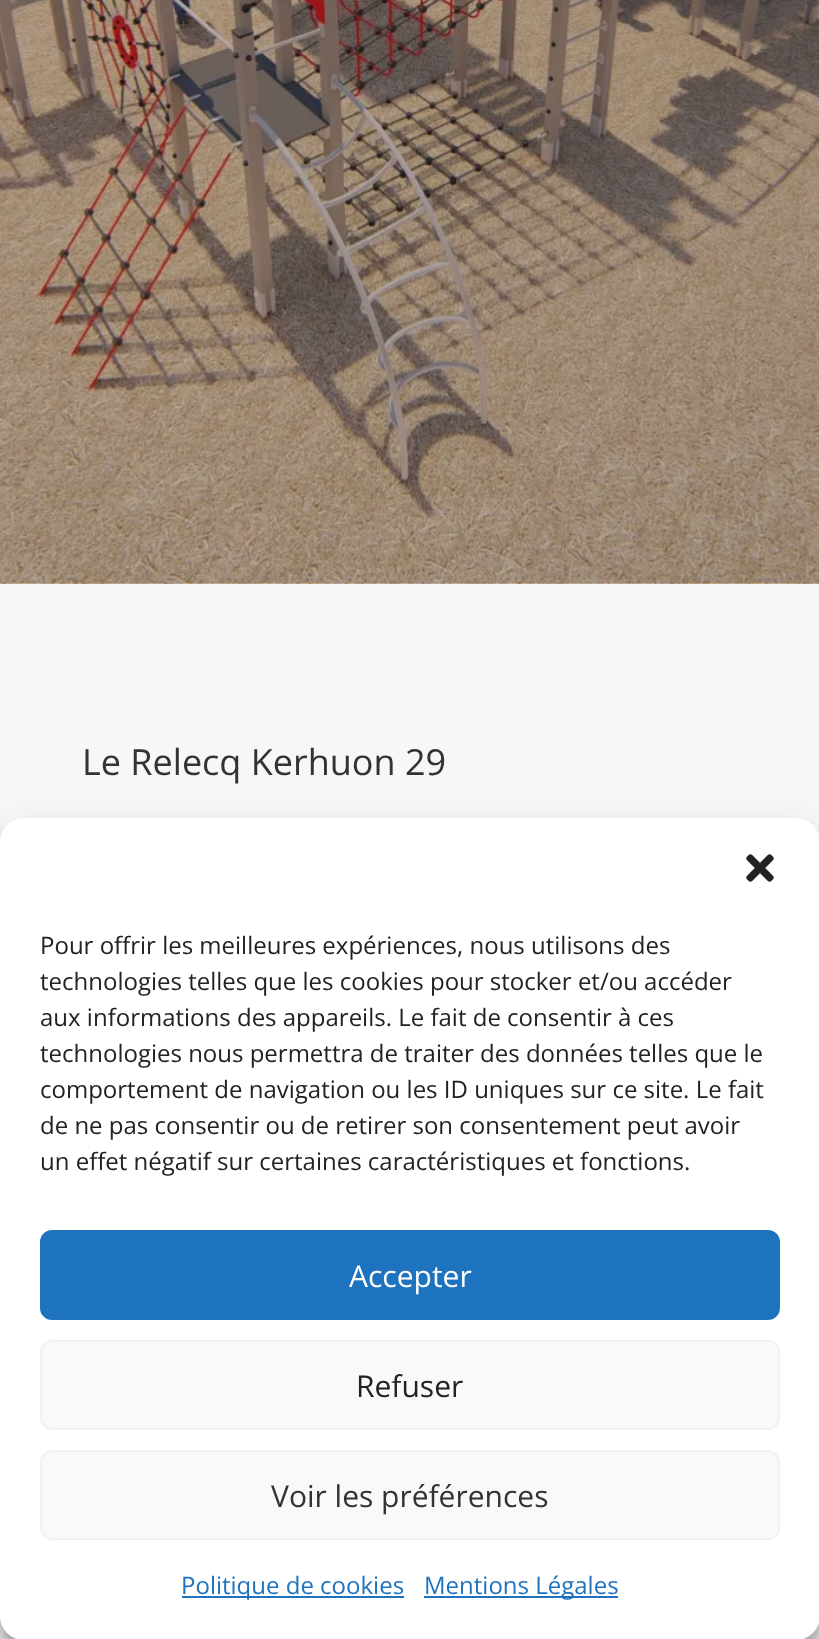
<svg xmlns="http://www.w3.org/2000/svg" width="819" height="1639">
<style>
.a{font:36px Open Sans;fill:#333}
.b{font:24px Open Sans;fill:#222}
.c{font:30px Open Sans;fill:#fff}
.d{font:30px Open Sans;fill:#222}
.e{font:30px Open Sans;fill:#333}
.f{font:24px Open Sans;fill:#1e73be}
</style>
<rect width="100%" height="100%" fill="#fff"/>
<image href="1.png" x="0" y="0" width="819" height="584"/>
<path fill="#f7f7f7" d="M0 584h819v1055H0z"/>
<rect fill="#0000003b" filter="blur(6px)" y="830" width="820" height="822" rx="24"/>
<rect fill="#00000030" filter="blur(20px)" y="838" width="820" height="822" rx="24"/>
<rect fill="#fff" y="818" width="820" height="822" rx="24"/>
<image href="2.png" x="746" y="854" width="28" height="28"/>
<rect fill="#1e73be" stroke="#1e73be" stroke-width="2" x="41" y="1231" width="738" height="88" rx="11"/>
<rect fill="#f9f9f9" stroke="#f2f2f2" stroke-width="2" x="41" y="1341" width="738" height="88" rx="11"/>
<rect fill="#f9f9f9" stroke="#f2f2f2" stroke-width="2" x="41" y="1451" width="738" height="88" rx="11"/>
<path fill="#1e73be" d="M182 1596h222v2H182z"/>
<path fill="#1e73be" d="M424 1596h194v2H424z"/>
<text class="a" x="82" y="775">Le Relecq Kerhuon 29</text>
<text class="b" x="40" y="954">Pour offrir les meilleures expériences, nous utilisons des</text>
<text class="b" x="40" y="990">technologies telles que les cookies pour stocker et/ou accéder</text>
<text class="b" x="40" y="1026">aux informations des appareils. Le fait de consentir à ces</text>
<text class="b" x="40" y="1062">technologies nous permettra de traiter des données telles que le</text>
<text class="b" x="40" y="1098">comportement de navigation ou les ID uniques sur ce site. Le fait</text>
<text class="b" x="40" y="1134">de ne pas consentir ou de retirer son consentement peut avoir</text>
<text class="b" x="40" y="1170">un effet négatif sur certaines caractéristiques et fonctions.</text>
<text class="c" x="349" y="1287">Accepter</text>
<text class="d" x="356" y="1397">Refuser</text>
<text class="e" x="271" y="1507">Voir les préférences</text>
<text class="f" x="181" y="1594">Politique de cookies</text>
<text class="f" x="424" y="1594">Mentions Légales</text>
</svg>
